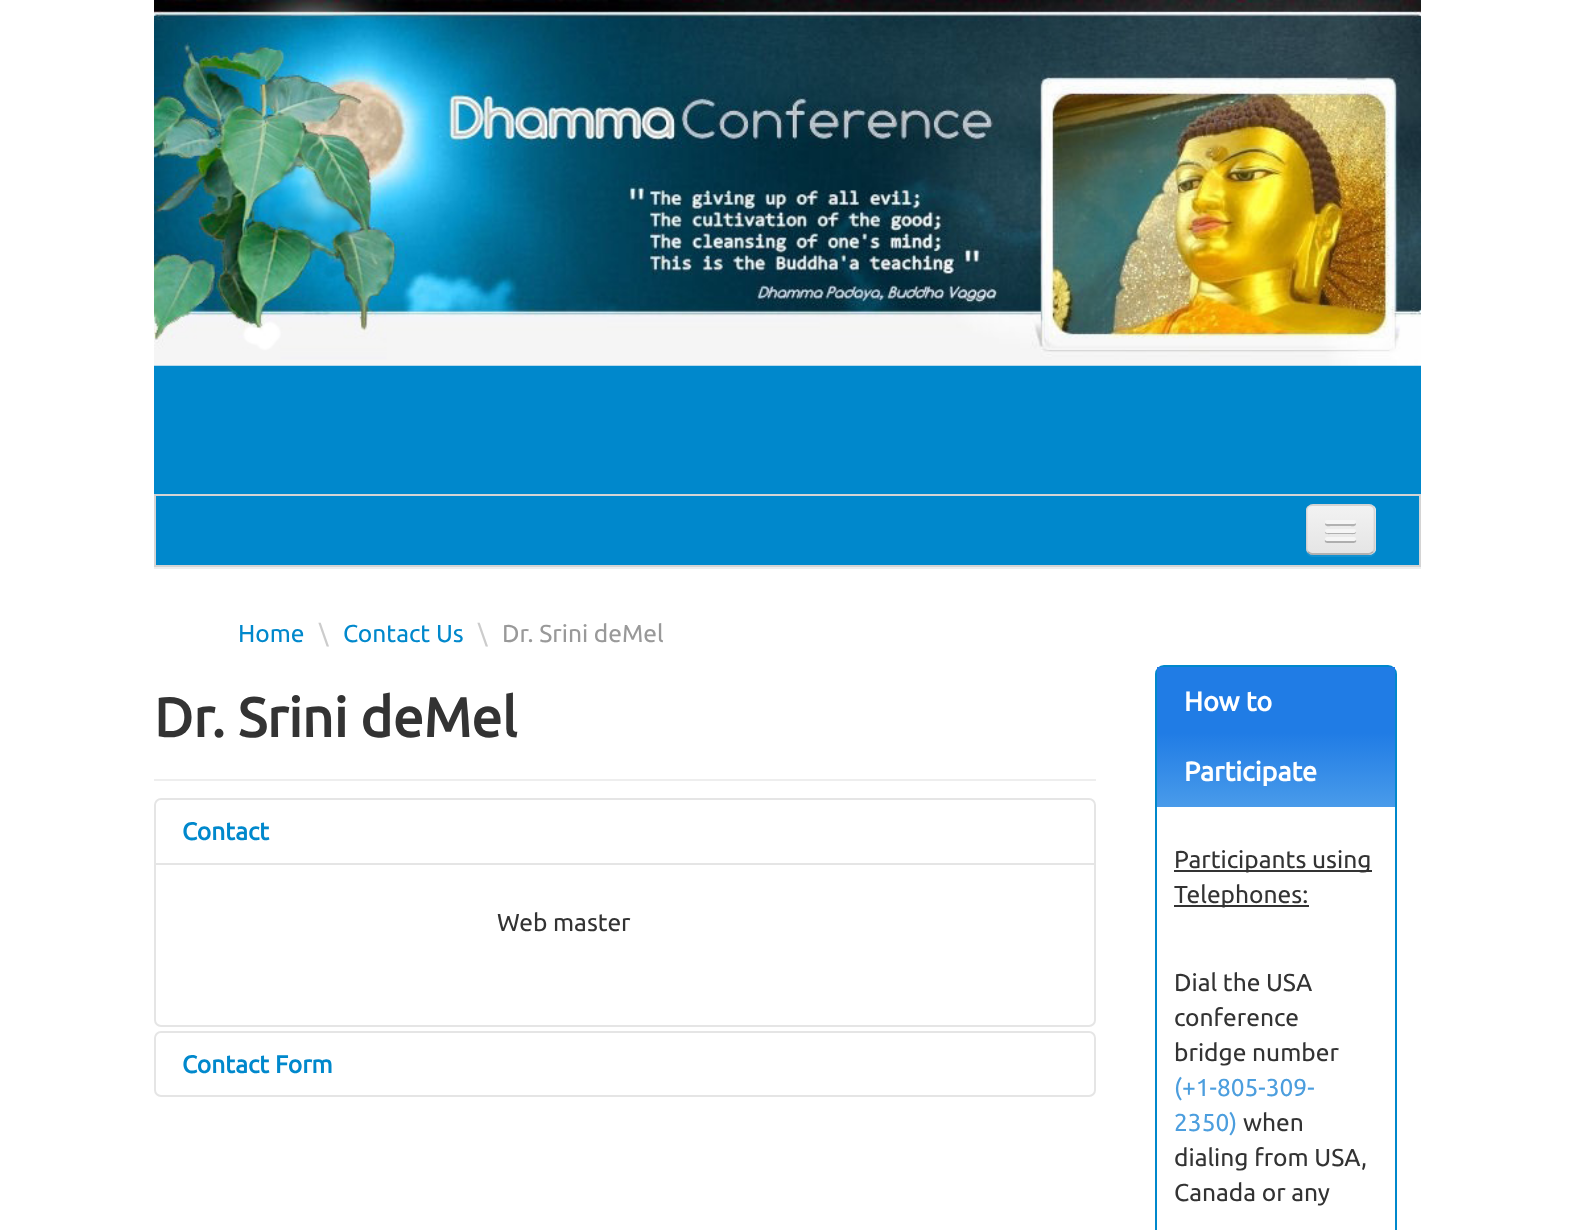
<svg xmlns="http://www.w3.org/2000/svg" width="1575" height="1230">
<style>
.a{font:24.5px Ubuntu;fill:#08c}
.b{font:24.5px Ubuntu;fill:#ccc}
.c{font:24.5px Ubuntu;fill:#999}
.d{font:bold 55px Ubuntu;fill:#333}
.e{font:bold 24.5px Ubuntu;fill:#08c}
.f{font:24.5px Ubuntu;fill:#333}
.g{font:bold 27px Ubuntu;fill:#fff}
.h{font:24.5px Ubuntu;fill:#4c9ede}
</style>
<defs>
<clipPath id="clip1"><rect x="1306" y="504" width="70" height="51" rx="7"/></clipPath>
<linearGradient id="g1" gradientUnits="userSpaceOnUse" x1="1341" y1="506" x2="1341" y2="553"><stop offset="0" stop-color="#f2f2f2"/><stop offset="1" stop-color="#e5e5e5"/></linearGradient>
<linearGradient id="g2" gradientUnits="userSpaceOnUse" x1="1276" y1="667" x2="1276" y2="807"><stop offset="0" stop-color="#207ce5"/><stop offset="0.47" stop-color="#207ce5"/><stop offset="1" stop-color="#499bea"/></linearGradient>
</defs>
<rect width="100%" height="100%" fill="#fff"/>
<path fill="#08c" d="M154 365h1267v129H154z"/>
<image href="1.png" x="154" y="0" width="1267" height="366"/>
<path fill="#eee" d="M154 567h1267v2H154z"/>
<path fill="#08c" stroke="#d4d4d4" stroke-width="2" d="M155 495h1265v71H155z"/>
<path fill="#1391d0" d="M1306 550c0 4 3 7 7 7h56c4 0 7-3 7-7v-37l-1-3l1 32c0 14-3 13-17 13h-37c-5 0-13 2-16-5z"/>
<rect fill="#ededed" x="1306" y="504" width="70" height="51" rx="7"/>
<g clip-path="url(#clip1)">
<path fill="url(#g1)" d="M1306 506h70v47H1306z"/>
</g>
<path fill="none" stroke="#00000040" stroke-width="1.8" d="M1373 552c-1.5 1-3 2-4.5 2h-56c-1.5 0-3-1-4.5-2"/>
<path fill="none" stroke="#0000001a" stroke-width="1.8" d="M1308 552c-1-1-1.5-2.5-1.5-4v-37c0-1.5 .5-3 1.5-4.5c1.5-1 3-1.5 4.5-1.5h56c1.5 0 3 .5 4.5 1.5c1 1.5 1.5 3 1.5 4.5v37c0 1.5-.5 3-1.5 4"/>
<path fill="#b2b2b2" d="M1325.5 523l-.5 1.5c.5 2.5 5.5 1.5 6.5 1.5h18c1 0 6 1 6.5-1.5l-.5-1.5c-1 .5-29 .5-30 0z"/>
<rect fill="#f5f5f5" x="1325" y="520" width="31" height="4" rx="2"/>
<path fill="#b0b0b0" d="M1325 531.5c-1 3.5 5.5 2.5 6.5 2.5h18c1 0 7.5 1 6.5-2.5l-1.5 .5h-28z"/>
<rect fill="#f5f5f5" x="1325" y="529" width="31" height="4" rx="2"/>
<path fill="#aeaeae" d="M1325 540c-1.5 4 5.5 3 6.5 3h18c1 0 8 1 6.5-3l-1.5 .5h-28z"/>
<rect fill="#f5f5f5" x="1325" y="537" width="31" height="4" rx="2"/>
<path fill="#eee" d="M154 779h942v2H154z"/>
<rect fill="none" stroke="#e5e5e5" stroke-width="2" x="155" y="799" width="940" height="227" rx="6"/>
<path fill="#e5e5e5" d="M156 863h938v2H156z"/>
<rect fill="none" stroke="#e5e5e5" stroke-width="2" x="155" y="1032" width="940" height="64" rx="6"/>
<rect fill="none" stroke="#08c" stroke-width="2" x="1156" y="666" width="240" height="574" rx="8"/>
<path fill="url(#g2)" d="M1157 667h238v140H1157z"/>
<path fill="#333" d="M1174 870h198v2H1174z"/>
<path fill="#333" d="M1174 905h135v2H1174z"/>
<text class="a" x="238" y="642">Home</text>
<text class="b" x="319" y="642">\</text>
<text class="a" x="343" y="642">Contact Us</text>
<text class="b" x="478" y="642">\</text>
<text class="c" x="502" y="642">Dr. Srini deMel</text>
<text class="d" x="154" y="737">Dr. Srini deMel</text>
<text class="e" x="182" y="840">Contact</text>
<text class="f" x="497" y="931">Web master</text>
<text class="e" x="182" y="1073">Contact Form</text>
<text class="g" x="1184" y="711">How to</text>
<text class="g" x="1184" y="781">Participate</text>
<text class="f" x="1174" y="868">Participants using</text>
<text class="f" x="1174" y="903">Telephones:</text>
<text class="f" x="1174" y="991">Dial the USA</text>
<text class="f" x="1174" y="1026">conference</text>
<text class="f" x="1174" y="1061">bridge number</text>
<text class="h" x="1174" y="1096">(+1-805-309-</text>
<text class="h" x="1174" y="1131">2350)</text>
<text class="f" x="1243" y="1131">when</text>
<text class="f" x="1174" y="1166">dialing from USA,</text>
<text class="f" x="1174" y="1201">Canada or any</text>
</svg>
